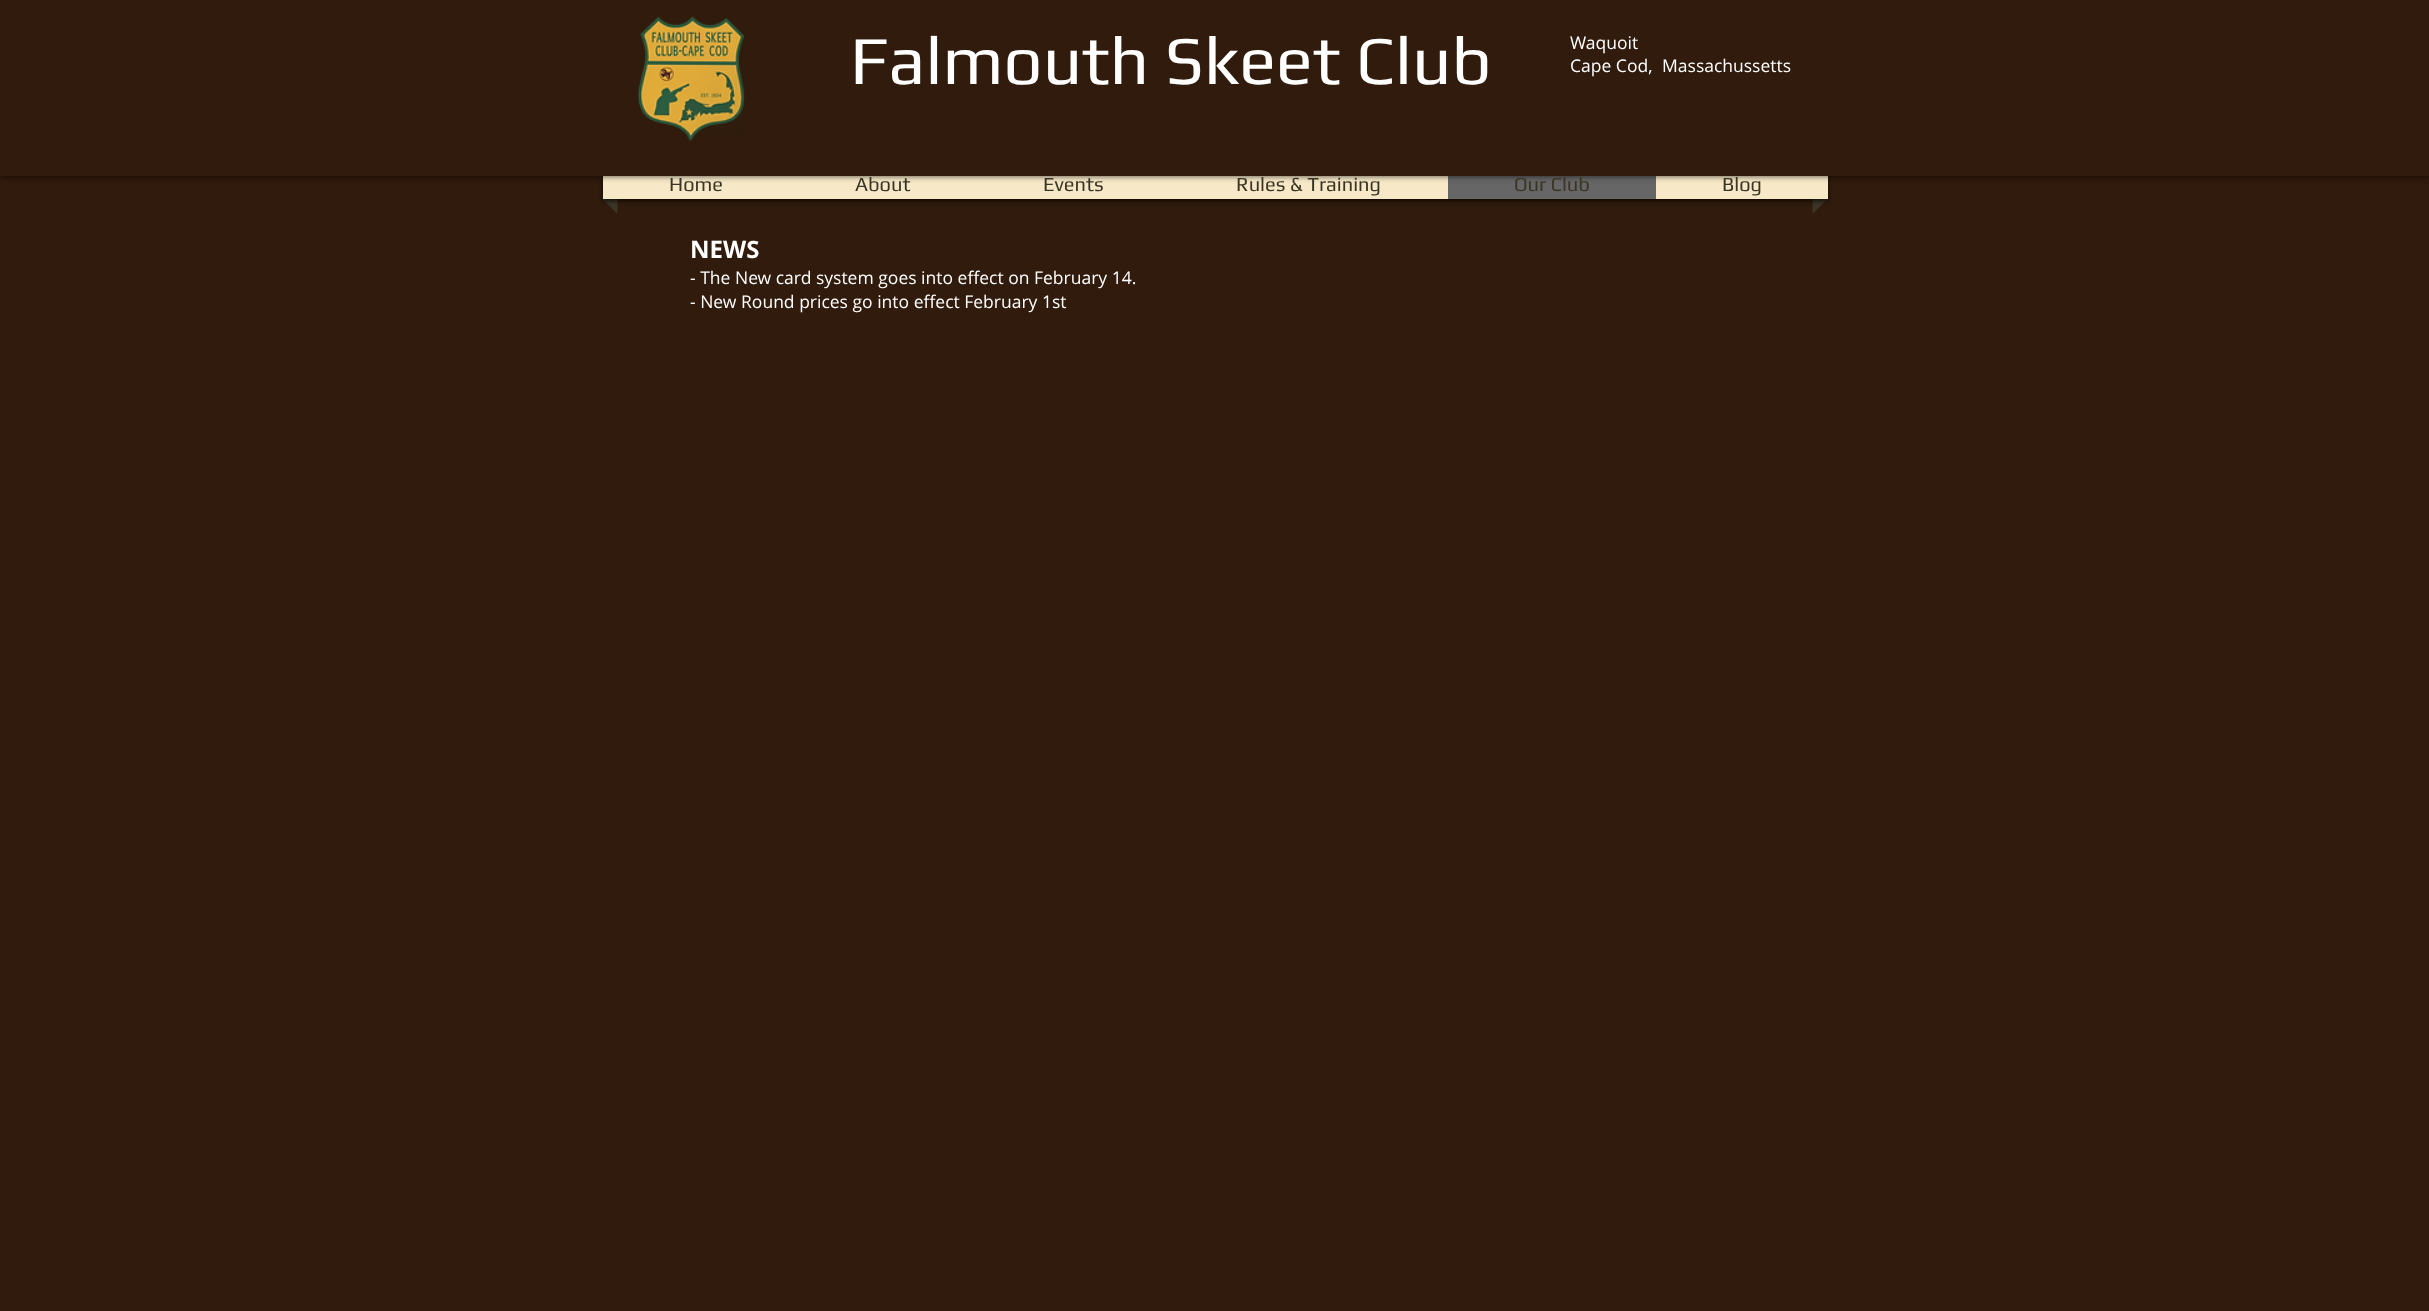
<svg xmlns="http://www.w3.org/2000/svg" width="2429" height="1311">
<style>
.a{font:68.75px Play;fill:#fff}
.b{font:17.5px Open Sans;fill:#fff}
.c{font:20px Play;fill:#3b3525}
.d{font:bold 24px Open Sans;fill:#fff}
</style>
<rect width="100%" height="100%" fill="#301b0c"/>
<path fill="#3b3525" d="M602.5 199h15v15z"/>
<path fill="#3b3525" d="M1812.5 199h15l-15 15z"/>
<path fill="#000000b3" filter="blur(2px)" d="M603 174h1225v27H603z"/>
<path fill="#f7e9c8" d="M603 176h1225v23H603z"/>
<path fill="#666" d="M1448 176h208v23H1448z"/>
<path fill="#000000b3" filter="blur(3px)" d="M0 0h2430v176H0z"/>
<path fill="#301b0c" d="M0 0h2429v176H0z"/>
<image href="1.png" x="637" y="16" width="108" height="126"/>
<text class="a" x="850" y="84">Falmouth Skeet Club</text>
<text class="b" x="1570" y="49">Waquoit</text>
<text class="b" x="1570" y="72">Cape Cod,</text>
<text class="b" x="1662" y="72">Massachussetts</text>
<text class="c" x="669" y="191">Home</text>
<text class="c" x="855" y="191">About</text>
<text class="c" x="1043" y="191">Events</text>
<text class="c" x="1236" y="191">Rules &amp; Training</text>
<text class="c" x="1514" y="191">Our Club</text>
<text class="c" x="1722" y="191">Blog</text>
<text class="d" x="690" y="258">NEWS</text>
<text class="b" x="690" y="284">- The New card system goes into effect on February 14.</text>
<text class="b" x="690" y="308">- New Round prices go into effect February 1st</text>
</svg>
